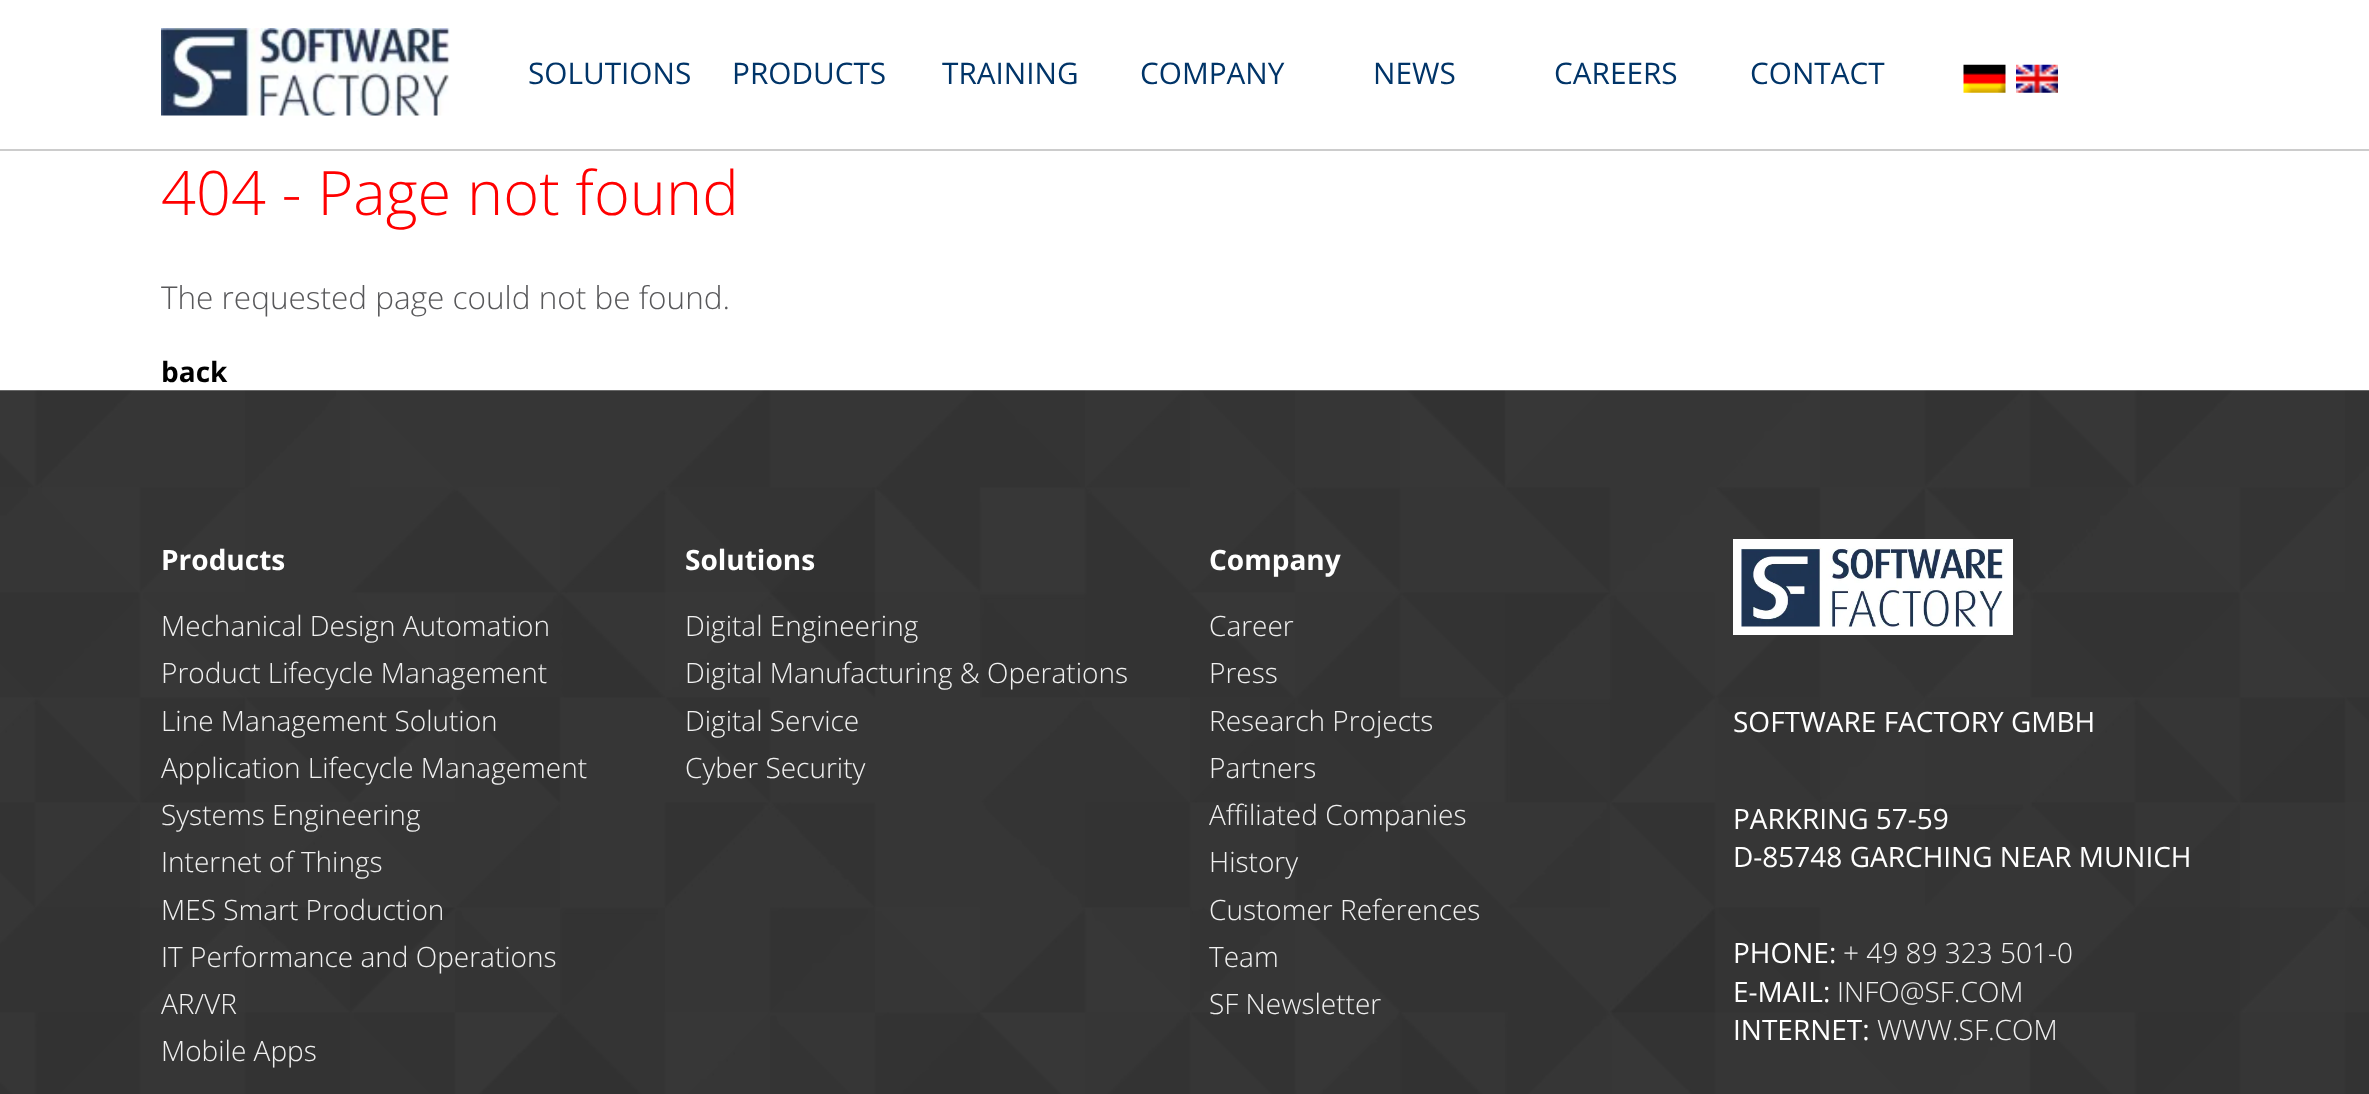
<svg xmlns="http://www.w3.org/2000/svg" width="2369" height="1094">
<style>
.a{font:29.75px Open Sans;fill:#003468}
.b{font:300 61.25px Open Sans;fill:#f00}
.c{font:300 31.5px Open Sans;fill:#58585a}
.d{font:bold 28px Open Sans;fill:#000}
.e{font:bold 28px Open Sans;fill:#fff}
.f{font:300 28px Open Sans;fill:#f0f0f0}
.g{font:28px Open Sans;fill:#fff}
</style>
<rect width="100%" height="100%" fill="#fff"/>
<path fill="#ccc" d="M0 149h2369v2H0z"/>
<image href="1.png" x="161" y="28" width="289" height="88"/>
<image href="2.png" x="1963" y="64" width="43" height="29"/>
<image href="3.png" x="2016" y="64" width="42" height="29"/>
<image href="4.png" x="0" y="390" width="2369" height="704"/>
<path fill="#fff" d="M1733 539h280v96H1733z"/>
<image href="5.png" x="1741" y="547" width="263" height="80"/>
<text class="a" x="528" y="84">SOLUTIONS</text>
<text class="a" x="732" y="84">PRODUCTS</text>
<text class="a" x="942" y="84">TRAINING</text>
<text class="a" x="1140" y="84">COMPANY</text>
<text class="a" x="1373" y="84">NEWS</text>
<text class="a" x="1554" y="84">CAREERS</text>
<text class="a" x="1750" y="84">CONTACT</text>
<text class="b" x="161" y="215">404 - Page not found</text>
<text class="c" x="161" y="309">The requested page could not be found.</text>
<text class="d" x="161" y="382">back</text>
<text class="e" x="161" y="570">Products</text>
<text class="f" x="161" y="636">Mechanical Design Automation</text>
<text class="f" x="161" y="683">Product Lifecycle Management</text>
<text class="f" x="161" y="731">Line Management Solution</text>
<text class="f" x="161" y="778">Application Lifecycle Management</text>
<text class="f" x="161" y="825">Systems Engineering</text>
<text class="f" x="161" y="872">Internet of Things</text>
<text class="f" x="161" y="920">MES Smart Production</text>
<text class="f" x="161" y="967">IT Performance and Operations</text>
<text class="f" x="161" y="1014">AR/VR</text>
<text class="f" x="161" y="1061">Mobile Apps</text>
<text class="e" x="685" y="570">Solutions</text>
<text class="f" x="685" y="636">Digital Engineering</text>
<text class="f" x="685" y="683">Digital Manufacturing &amp; Operations</text>
<text class="f" x="685" y="731">Digital Service</text>
<text class="f" x="685" y="778">Cyber Security</text>
<text class="e" x="1209" y="570">Company</text>
<text class="f" x="1209" y="636">Career</text>
<text class="f" x="1209" y="683">Press</text>
<text class="f" x="1209" y="731">Research Projects</text>
<text class="f" x="1209" y="778">Partners</text>
<text class="f" x="1209" y="825">Affiliated Companies</text>
<text class="f" x="1209" y="872">History</text>
<text class="f" x="1209" y="920">Customer References</text>
<text class="f" x="1209" y="967">Team</text>
<text class="f" x="1209" y="1014">SF Newsletter</text>
<text class="g" x="1733" y="732">SOFTWARE FACTORY GMBH</text>
<text class="g" x="1733" y="829">PARKRING 57-59</text>
<text class="g" x="1733" y="867">D-85748 GARCHING NEAR MUNICH</text>
<text class="g" x="1733" y="963">PHONE:</text>
<text class="f" x="1843" y="963">+ 49 89 323 501-0</text>
<text class="g" x="1733" y="1002">E-MAIL:</text>
<text class="f" x="1837" y="1002">INFO@SF.COM</text>
<text class="g" x="1733" y="1040">INTERNET:</text>
<text class="f" x="1877" y="1040">WWW.SF.COM</text>
</svg>
